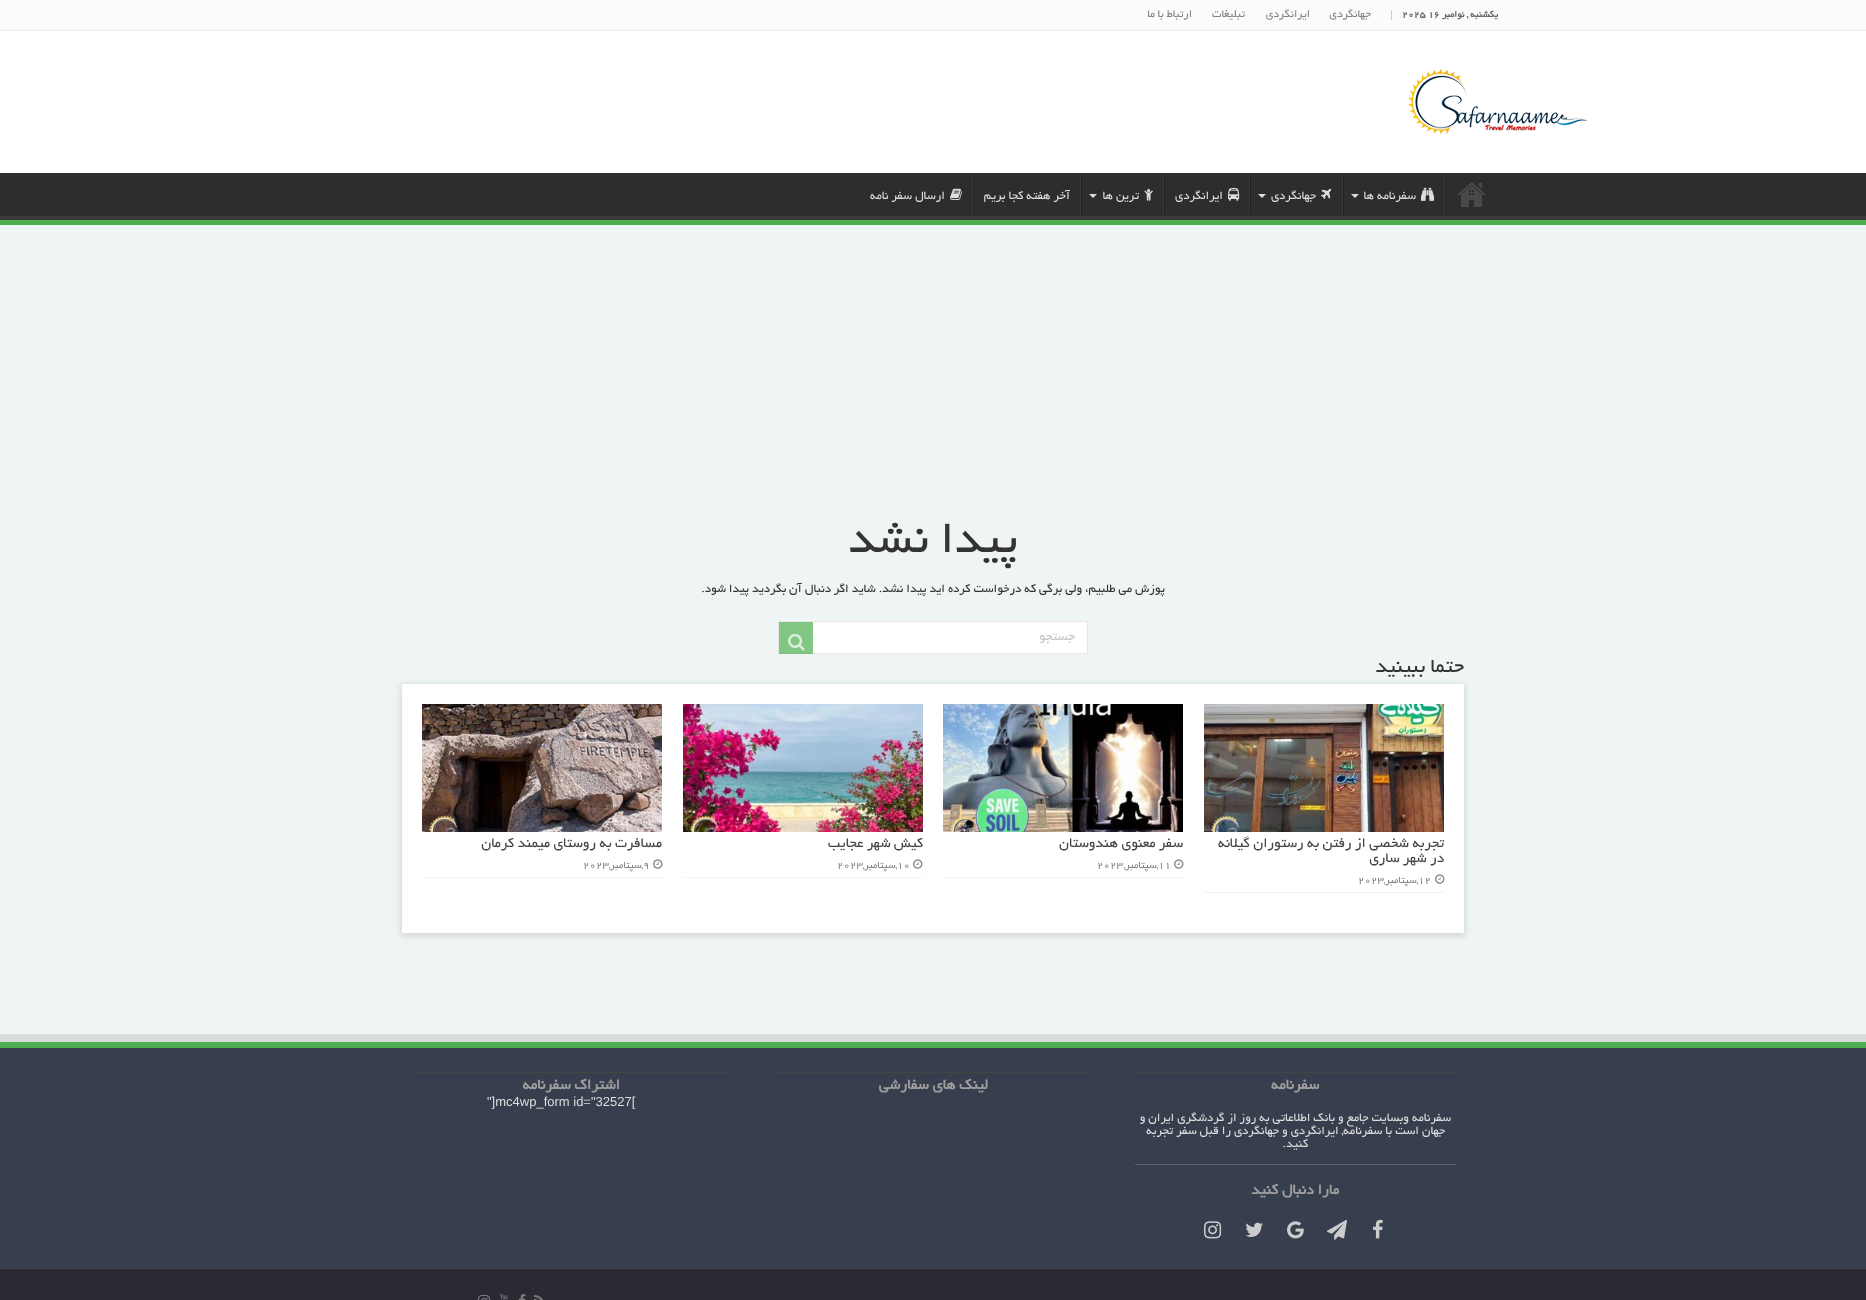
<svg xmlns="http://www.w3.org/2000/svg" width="1866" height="1300">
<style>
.a{font:bold 10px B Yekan;direction:rtl;fill:#666}
.b{font:bold 10px B Yekan;fill:#666}
.c{font:12px B Yekan;direction:rtl;fill:#838383}
.d{font:13px B Yekan;direction:rtl;fill:#ddd}
.e{font:50px B Yekan;direction:rtl;fill:#333}
.f{font:13px B Yekan;direction:rtl;fill:#333}
.g{font:14px B Yekan;direction:rtl;fill:#c5c5c5}
.h{font:22px B Yekan;direction:rtl;fill:#333}
.i{font:15.25px B Yekan;direction:rtl;fill:#444}
.j{font:11px B Yekan;fill:#838383}
.k{font:11px B Yekan;direction:rtl;fill:#838383}
.l{font:bold 16px B Yekan;direction:rtl;fill:#9e9e9e}
.m{font:13px Liberation Sans;fill:#ddd}
</style>
<defs>
<clipPath id="clip1"><path d="M0 173h1866v47H0z"/></clipPath>
</defs>
<rect width="100%" height="100%" fill="#eff4f4"/>
<path fill="#fff" d="M0 31h1866v142H0z"/>
<path fill="#fbfbfb" d="M0 0h1866v30H0z"/>
<path fill="#ececec" d="M0 30h1866v1H0z"/>
<path fill="#ccc" d="M1391 10h1v10H1391z"/>
<image href="1.png" x="1408" y="69" width="180" height="66"/>
<path fill="#2d2d2d" d="M0 173h1866v43H0z"/>
<g clip-path="url(#clip1)">
<path fill="#393939" fill-rule="evenodd" d="M-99 74h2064v245h-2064zm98 93h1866c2 1 1 15 1 17v31l-1 1h-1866h-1v-40c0-1-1-9 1-9z"/>
</g>
<path fill="#4caf4f" d="M0 220h1866v5H0z"/>
<image href="2.png" x="1457" y="182" width="29" height="25"/>
<path fill="#222" d="M1445 173h1v42H1445z"/>
<path fill="#383838" d="M1444 173h1v42H1444z"/>
<image href="3.png" x="1421" y="187" width="13" height="14"/>
<path fill="#ddd" d="M1351 194h8l-4 4z"/>
<path fill="#222" d="M1343 173h1v42H1343z"/>
<path fill="#383838" d="M1342 173h1v42H1342z"/>
<image href="4.png" x="1321" y="188" width="11" height="11"/>
<path fill="#ddd" d="M1258 194h8l-4 4z"/>
<path fill="#222" d="M1250 173h1v42H1250z"/>
<path fill="#383838" d="M1249 173h1v42H1249z"/>
<image href="5.png" x="1228" y="187" width="12" height="14"/>
<path fill="#222" d="M1164 173h1v42H1164z"/>
<path fill="#383838" d="M1163 173h1v42H1163z"/>
<image href="6.png" x="1144" y="189" width="9" height="12"/>
<path fill="#ddd" d="M1089 194h8l-4 4z"/>
<path fill="#222" d="M1081 173h1v42H1081z"/>
<path fill="#383838" d="M1080 173h1v42H1080z"/>
<path fill="#222" d="M973 173h1v42H973z"/>
<path fill="#383838" d="M972 173h1v42H972z"/>
<image href="7.png" x="950" y="188" width="12" height="12"/>
<path fill="#fff" stroke="#e8e8e8" d="M778.5 621.5h309v32H778.5z"/>
<path fill="#4caf4fb3" d="M779 622h34v32H779z"/>
<image href="8.png" x="788" y="633" width="17" height="18"/>
<path fill="#86868647" filter="blur(3px)" d="M401 685h1064v251H401z"/>
<path fill="#fff" d="M402 684h1062v249H402z"/>
<image href="9.png" x="1204" y="704" width="240" height="128"/>
<path fill="#f2f2f2" d="M1204 892h240v1H1204z"/>
<image href="10.png" x="1435" y="874" width="10" height="10"/>
<image href="11.png" x="943" y="704" width="240" height="128"/>
<path fill="#f2f2f2" d="M943 877h240v1H943z"/>
<image href="10.png" x="1174" y="859" width="10" height="10"/>
<image href="12.png" x="683" y="704" width="240" height="128"/>
<path fill="#f2f2f2" d="M683 877h240v1H683z"/>
<image href="10.png" x="913" y="859" width="10" height="10"/>
<image href="13.png" x="422" y="704" width="240" height="128"/>
<path fill="#f2f2f2" d="M422 877h240v1H422z"/>
<image href="10.png" x="653" y="859" width="10" height="10"/>
<path fill="#d7dcdc" d="M0 1034h1866v8H0z"/>
<path fill="#373e4e" d="M0 1048h1866v220H0z"/>
<path fill="#4caf50" d="M0 1042h1866v6H0z"/>
<path fill="#444" d="M1135 1072h321v1H1135z"/>
<path fill="#5e5e5e" d="M1135 1164h321v1H1135z"/>
<image href="14.png" x="1373" y="1219" width="10" height="20"/>
<image href="15.png" x="1327" y="1219" width="20" height="21"/>
<image href="16.png" x="1287" y="1221" width="17" height="18"/>
<image href="17.png" x="1245" y="1222" width="18" height="15"/>
<image href="18.png" x="1204" y="1221" width="18" height="18"/>
<path fill="#444" d="M773 1072h320v1H773z"/>
<path fill="#444" d="M411 1072h320v1H411z"/>
<path fill="#2a2b32" d="M0 1269h1866v31H0z"/>
<path fill="#444" d="M0 1268h1866v1H0z"/>
<image href="19.png" x="534" y="1295" width="9" height="5"/>
<image href="20.png" x="518" y="1294" width="8" height="6"/>
<image href="21.png" x="500" y="1294" width="8" height="6"/>
<image href="22.png" x="478" y="1295" width="12" height="5"/>
<text class="a" x="1498" y="17">یکشنبه , نوامبر</text>
<text class="b" x="1402" y="17">2025 16</text>
<text class="c" x="1371" y="17">جهانگردی</text>
<text class="c" x="1310" y="17">ایرانگردی</text>
<text class="c" x="1245" y="17">تبلیغات</text>
<text class="c" x="1192" y="17">ارتباط با ما</text>
<text class="d" x="1416" y="199">سفرنامه ها</text>
<text class="d" x="1316" y="199">جهانگردی</text>
<text class="d" x="1223" y="199">ایرانگردی</text>
<text class="d" x="1139" y="199">ترین ها</text>
<text class="d" x="1070" y="199">آخر هفته کجا بریم</text>
<text class="d" x="945" y="199">ارسال سفر نامه</text>
<text class="e" x="1018" y="552">پیدا نشد</text>
<text class="f" x="1165" y="592">پوزش می طلبیم، ولی برگی که درخواست کرده اید پیدا نشد. شاید اگر دنبال آن بگردید پیدا شود.</text>
<text class="g" x="1075" y="640">جستجو</text>
<text class="h" x="1464" y="672">حتما ببینید</text>
<text class="i" x="1444" y="847">تجربه شخصی از رفتن به رستوران گیلانه</text>
<text class="i" x="1444" y="862">در شهر ساری</text>
<text class="j" x="1418" y="883">12</text>
<text class="k" x="1418" y="883">,سپتامبر,</text>
<text class="j" x="1358" y="883">2023</text>
<text class="i" x="1183" y="847">سفر معنوی هندوستان</text>
<text class="j" x="1158" y="868">11</text>
<text class="j" x="1097" y="868">2023</text>
<text class="k" x="1158" y="868">,سپتامبر,</text>
<text class="i" x="923" y="847">کیش شهر عجایب</text>
<text class="j" x="897" y="868">10</text>
<text class="j" x="837" y="868">2023</text>
<text class="k" x="897" y="868">,سپتامبر,</text>
<text class="i" x="662" y="847">مسافرت به روستای میمند کرمان</text>
<text class="j" x="643" y="868">9</text>
<text class="j" x="583" y="868">2023</text>
<text class="k" x="643" y="868">,سپتامبر,</text>
<text class="l" x="1319" y="1089">سفرنامه</text>
<text class="d" x="1451" y="1121">سفرنامه وبسایت جامع و بانک اطلاعاتی به روز از گردشگری ایران و</text>
<text class="d" x="1445" y="1134">جهان است</text>
<text class="d" x="1392" y="1134">با سفرنامه, ایرانگردی و جهانگردی را قبل سفر تجربه</text>
<text class="d" x="1308" y="1147">کنید.</text>
<text class="l" x="1339" y="1194">مارا دنبال کنید</text>
<text class="l" x="988" y="1089">لینک های سفارشی</text>
<text class="l" x="620" y="1089">اشتراک سفرنامه</text>
<text class="m" x="487" y="1106">"]mc4wp_form id="32527[</text>
</svg>
